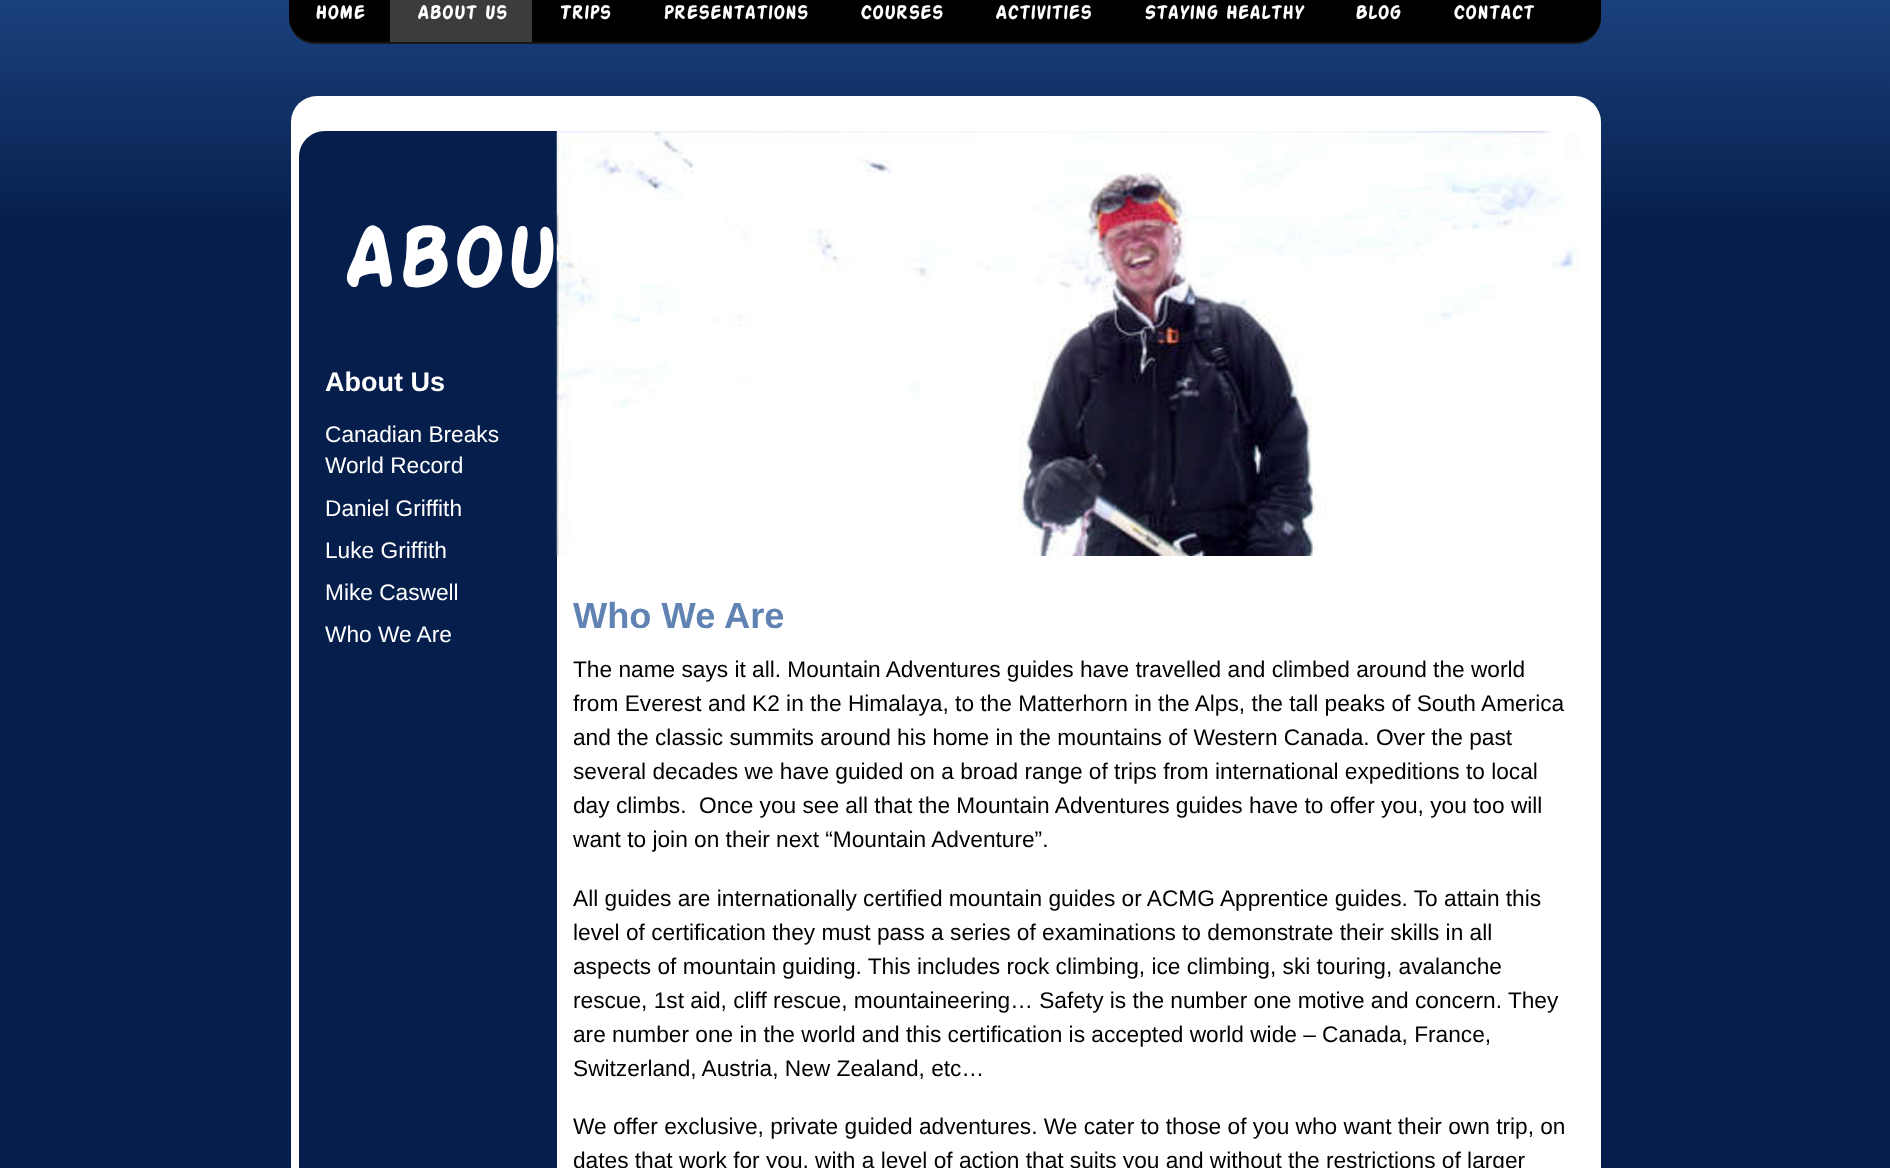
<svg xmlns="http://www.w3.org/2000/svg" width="1890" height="1168">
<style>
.a{font:bold 20.5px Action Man;fill:#fff}
.b{font:bold 91px Action Man;fill:#fff}
.c{font:bold 27px Liberation Sans;fill:#fff}
.d{font:22.7px Liberation Sans;fill:#fff}
.e{font:bold 36.25px Liberation Sans;fill:#6083b3}
.f{font:22.7px Liberation Sans;fill:#000}
</style>
<defs>
<linearGradient id="g1" gradientUnits="userSpaceOnUse" x1="945" y1="-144" x2="945" y2="1026"><stop offset="0" stop-color="#275799"/><stop offset="0.32" stop-color="#061e4c"/></linearGradient>
</defs>
<rect width="100%" height="100%" fill="#061e4c"/>
<path fill="url(#g1)" d="M0 0h1890v218H0z"/>
<path fill="#1a1819" d="M289-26h1312v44c0 14.5-11.5 26-26 26h-1260c-14.5 0-26-11.5-26-26z"/>
<path fill="#000" d="M289-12h1312v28c0 14.5-11.5 26-26 26h-1260c-14.5 0-26-11.5-26-26z"/>
<path fill="#3d3b3b" d="M390 0h142v42H390z"/>
<rect fill="#fff" x="291" y="96" width="1310" height="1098" rx="26"/>
<path fill="#061e4c" d="M325 131h1266v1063h-1266c-14.5 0-26-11.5-26-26v-1011c0-14.5 11.5-26 26-26z"/>
<path fill="#fff" d="M557 131h1034v1037H557z"/>
<image href="1.png" x="556" y="131" width="1023" height="425"/>
<text class="a" x="315" y="19">Home</text>
<text class="a" x="417" y="19">About Us</text>
<text class="a" x="559" y="19">Trips</text>
<text class="a" x="663" y="19">Presentations</text>
<text class="a" x="860" y="19">Courses</text>
<text class="a" x="995" y="19">Activities</text>
<text class="a" x="1144" y="19">Staying Healthy</text>
<text class="a" x="1355" y="19">Blog</text>
<text class="a" x="1453" y="19">Contact</text>
<text class="b" x="342" y="287">Abou</text>
<text class="c" x="325" y="391">About Us</text>
<text class="d" x="325" y="442">Canadian Breaks</text>
<text class="d" x="325" y="473">World Record</text>
<text class="d" x="325" y="516">Daniel Griffith</text>
<text class="d" x="325" y="558">Luke Griffith</text>
<text class="d" x="325" y="600">Mike Caswell</text>
<text class="d" x="325" y="642">Who We Are</text>
<text class="e" x="573" y="628">Who We Are</text>
<text class="f" x="573" y="677">The name says it all. Mountain Adventures guides have travelled and climbed around the world</text>
<text class="f" x="573" y="711">from Everest and K2 in the Himalaya, to the Matterhorn in the Alps, the tall peaks of South America</text>
<text class="f" x="573" y="745">and the classic summits around his home in the mountains of Western Canada. Over the past</text>
<text class="f" x="573" y="779">several decades we have guided on a broad range of trips from international expeditions to local</text>
<text class="f" xml:space="preserve" x="573" y="813">day climbs.  Once you see all that the Mountain Adventures guides have to offer you, you too will</text>
<text class="f" x="573" y="847">want to join on their next “Mountain Adventure”.</text>
<text class="f" x="573" y="906">All guides are internationally certified mountain guides or ACMG Apprentice guides. To attain this</text>
<text class="f" x="573" y="940">level of certification they must pass a series of examinations to demonstrate their skills in all</text>
<text class="f" x="573" y="974">aspects of mountain guiding. This includes rock climbing, ice climbing, ski touring, avalanche</text>
<text class="f" x="573" y="1008">rescue, 1st aid, cliff rescue, mountaineering… Safety is the number one motive and concern. They</text>
<text class="f" x="573" y="1042">are number one in the world and this certification is accepted world wide – Canada, France,</text>
<text class="f" x="573" y="1076">Switzerland, Austria, New Zealand, etc…</text>
<text class="f" x="573" y="1134">We offer exclusive, private guided adventures. We cater to those of you who want their own trip, on</text>
<text class="f" x="573" y="1168">dates that work for you, with a level of action that suits you and without the restrictions of larger</text>
</svg>
